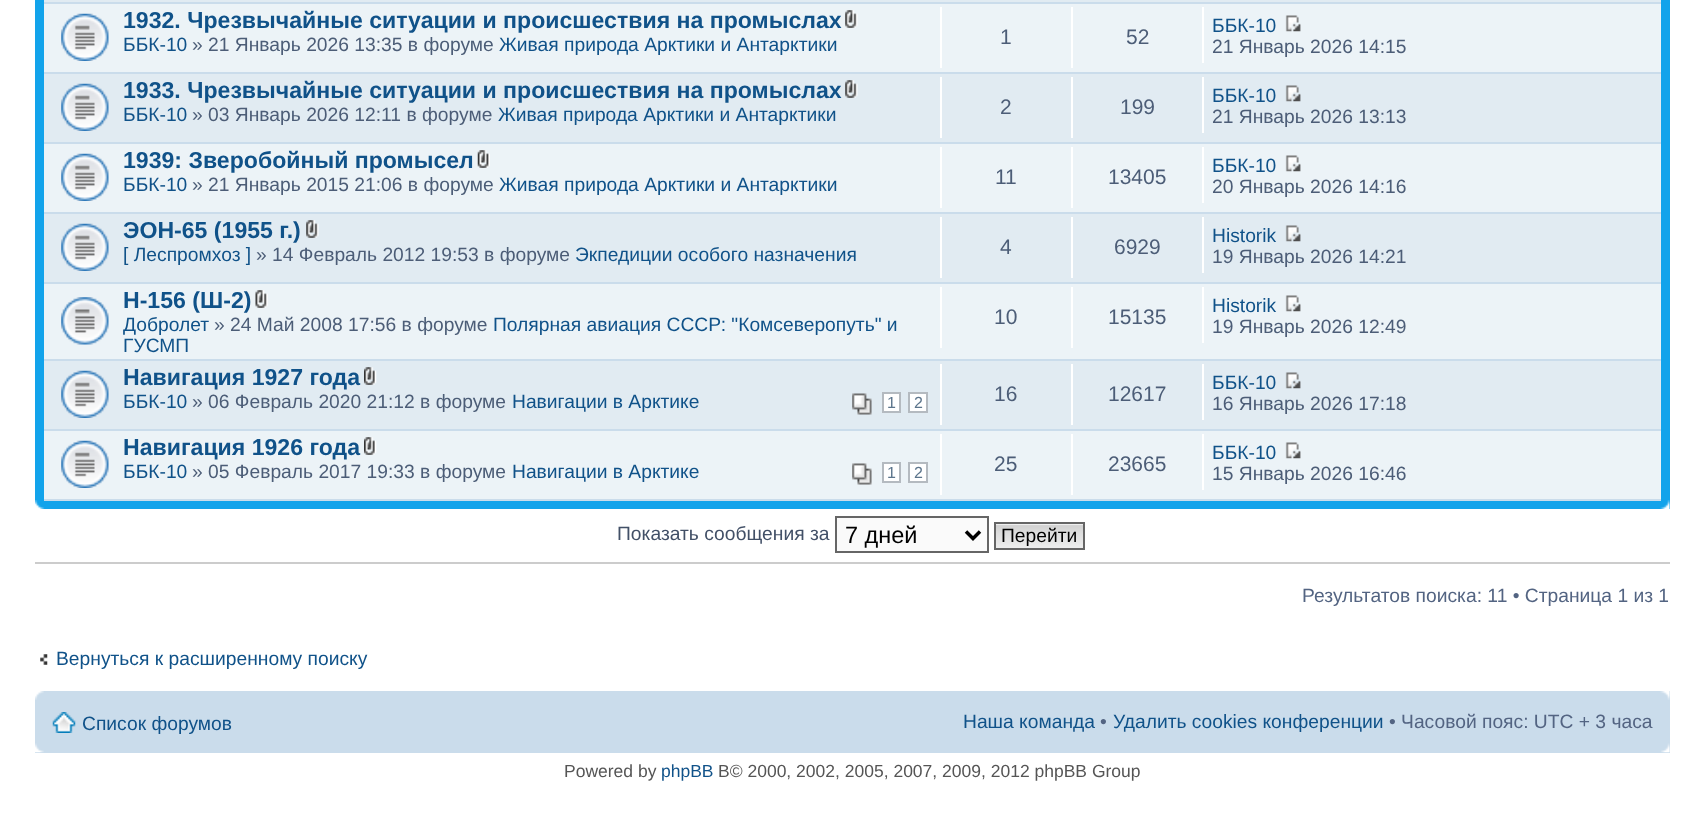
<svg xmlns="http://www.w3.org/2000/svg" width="1704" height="828">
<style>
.a{font:bold 23.1px Liberation Sans;fill:#105289}
.b{font:19.25px Liberation Sans;fill:#105289}
.c{font:19.25px Liberation Sans;fill:#4c5d77}
.d{font:21px Liberation Sans;fill:#4c5d77}
.e{font:16px Liberation Sans;fill:#5c758c}
.f{font:19.25px Liberation Sans;fill:#425067}
.g{font:23.5px Liberation Sans;fill:#000}
.h{font:19.25px Liberation Sans;fill:#000}
.i{font:19.25px Liberation Sans;fill:#536482}
.j{font:17.5px Liberation Sans;fill:#555}
.k{font:17.5px Liberation Sans;fill:#105289}
</style>
<rect width="100%" height="100%" fill="#fff"/>
<path fill="#12a3eb" d="M35 0h1635v509H35z"/>
<path fill="#e1ebf2" d="M44 0h1617v2H44z"/>
<path fill="#cadceb" d="M44 2h1617v2H44z"/>
<path fill="#ecf3f7" d="M44 4h1617v68H44z"/>
<path fill="#cadceb" d="M44 72h1617v2H44z"/>
<image href="1.png" x="61" y="13" width="48" height="48"/>
<image href="2.png" x="845" y="10" width="13" height="18"/>
<path fill="#fff" d="M940 7h2v61H940z"/>
<path fill="#fff" d="M1071 7h2v61H1071z"/>
<path fill="#fff" d="M1202 7h2v56H1202z"/>
<image href="3.png" x="1285" y="15" width="16" height="17"/>
<path fill="#e1ebf2" d="M44 74h1617v68H44z"/>
<path fill="#cadceb" d="M44 142h1617v2H44z"/>
<image href="4.png" x="61" y="83" width="48" height="48"/>
<image href="5.png" x="845" y="80" width="13" height="18"/>
<path fill="#fff" d="M940 77h2v61H940z"/>
<path fill="#fff" d="M1071 77h2v61H1071z"/>
<path fill="#fff" d="M1202 77h2v56H1202z"/>
<image href="6.png" x="1285" y="85" width="16" height="17"/>
<path fill="#ecf3f7" d="M44 144h1617v68H44z"/>
<path fill="#cadceb" d="M44 212h1617v2H44z"/>
<image href="1.png" x="61" y="153" width="48" height="48"/>
<image href="7.png" x="477" y="150" width="13" height="18"/>
<path fill="#fff" d="M940 147h2v61H940z"/>
<path fill="#fff" d="M1071 147h2v61H1071z"/>
<path fill="#fff" d="M1202 147h2v56H1202z"/>
<image href="3.png" x="1285" y="155" width="16" height="17"/>
<path fill="#e1ebf2" d="M44 214h1617v68H44z"/>
<path fill="#cadceb" d="M44 282h1617v2H44z"/>
<image href="4.png" x="61" y="223" width="48" height="48"/>
<image href="5.png" x="306" y="220" width="13" height="18"/>
<path fill="#fff" d="M940 217h2v61H940z"/>
<path fill="#fff" d="M1071 217h2v61H1071z"/>
<path fill="#fff" d="M1202 217h2v56H1202z"/>
<image href="6.png" x="1285" y="225" width="16" height="17"/>
<path fill="#ecf3f7" d="M44 284h1617v75H44z"/>
<path fill="#cadceb" d="M44 359h1617v2H44z"/>
<image href="8.png" x="61" y="297" width="48" height="48"/>
<image href="9.png" x="255" y="290" width="13" height="18"/>
<path fill="#fff" d="M940 287h2v61H940z"/>
<path fill="#fff" d="M1071 287h2v61H1071z"/>
<path fill="#fff" d="M1202 287h2v56H1202z"/>
<image href="3.png" x="1285" y="295" width="16" height="17"/>
<path fill="#e1ebf2" d="M44 361h1617v68H44z"/>
<path fill="#cadceb" d="M44 429h1617v2H44z"/>
<image href="4.png" x="61" y="370" width="48" height="48"/>
<image href="10.png" x="364" y="367" width="13" height="18"/>
<image href="11.png" x="852" y="393" width="20" height="22"/>
<path fill="#fff" stroke="#b4bac0" stroke-width="2" d="M883 393h17v19H883z"/>
<path fill="#fff" stroke="#b4bac0" stroke-width="2" d="M909 393h18v19H909z"/>
<path fill="#fff" d="M940 364h2v61H940z"/>
<path fill="#fff" d="M1071 364h2v61H1071z"/>
<path fill="#fff" d="M1202 364h2v56H1202z"/>
<image href="6.png" x="1285" y="372" width="16" height="17"/>
<path fill="#ecf3f7" d="M44 431h1617v68H44z"/>
<path fill="#cadceb" d="M44 499h1617v2H44z"/>
<image href="1.png" x="61" y="440" width="48" height="48"/>
<image href="12.png" x="364" y="437" width="13" height="18"/>
<image href="13.png" x="852" y="463" width="20" height="22"/>
<path fill="#fff" stroke="#b4bac0" stroke-width="2" d="M883 463h17v19H883z"/>
<path fill="#fff" stroke="#b4bac0" stroke-width="2" d="M909 463h18v19H909z"/>
<path fill="#fff" d="M940 434h2v61H940z"/>
<path fill="#fff" d="M1071 434h2v61H1071z"/>
<path fill="#fff" d="M1202 434h2v56H1202z"/>
<image href="3.png" x="1285" y="442" width="16" height="17"/>
<image href="14.png" x="35" y="500" width="10" height="9"/>
<image href="15.png" x="1660" y="500" width="10" height="9"/>
<path fill="#fafafa" stroke="#666" stroke-width="2" d="M836 517h152v35H836z"/>
<path fill="none" stroke="#000" stroke-width="3.5" d="M966 531.5l7 7l7-7"/>
<image href="16.png" x="996" y="524" width="87" height="24"/>
<path fill="none" stroke="#666" stroke-width="2" d="M995 523h89v26H995z"/>
<path fill="#ccc" d="M35 562h1635v2H35z"/>
<image href="17.png" x="40" y="654" width="8" height="11"/>
<path fill="#cadceb" d="M35 691h1635v62H35z"/>
<image href="18.png" x="35" y="691" width="9" height="9"/>
<image href="19.png" x="1660" y="691" width="10" height="9"/>
<image href="20.png" x="52" y="712" width="24" height="21"/>
<image href="21.png" x="35" y="743" width="9" height="10"/>
<image href="22.png" x="1661" y="743" width="9" height="10"/>
<text class="a" x="123" y="28">1932. Чрезвычайные ситуации и происшествия на промыслах</text>
<text class="b" x="123" y="51">ББК-10</text>
<text class="c" x="192" y="51">» 21 Январь 2026 13:35 в форуме</text>
<text class="b" x="499" y="51">Живая природа Арктики и Антарктики</text>
<text class="d" x="1000" y="44">1</text>
<text class="d" x="1126" y="44">52</text>
<text class="b" x="1212" y="32">ББК-10</text>
<text class="c" x="1212" y="53">21 Январь 2026 14:15</text>
<text class="a" x="123" y="98">1933. Чрезвычайные ситуации и происшествия на промыслах</text>
<text class="b" x="123" y="121">ББК-10</text>
<text class="c" x="192" y="121">» 03 Январь 2026 12:11 в форуме</text>
<text class="b" x="498" y="121">Живая природа Арктики и Антарктики</text>
<text class="d" x="1000" y="114">2</text>
<text class="d" x="1120" y="114">199</text>
<text class="b" x="1212" y="102">ББК-10</text>
<text class="c" x="1212" y="123">21 Январь 2026 13:13</text>
<text class="a" x="123" y="168">1939: Зверобойный промысел</text>
<text class="b" x="123" y="191">ББК-10</text>
<text class="c" x="192" y="191">» 21 Январь 2015 21:06 в форуме</text>
<text class="b" x="499" y="191">Живая природа Арктики и Антарктики</text>
<text class="d" x="995" y="184">11</text>
<text class="d" x="1108" y="184">13405</text>
<text class="b" x="1212" y="172">ББК-10</text>
<text class="c" x="1212" y="193">20 Январь 2026 14:16</text>
<text class="a" x="123" y="238">ЭОН-65 (1955 г.)</text>
<text class="b" x="123" y="261">[ Леспромхоз ]</text>
<text class="c" x="256" y="261">» 14 Февраль 2012 19:53 в форуме</text>
<text class="b" x="575" y="261">Экпедиции особого назначения</text>
<text class="d" x="1000" y="254">4</text>
<text class="d" x="1114" y="254">6929</text>
<text class="b" x="1212" y="242">Historik</text>
<text class="c" x="1212" y="263">19 Январь 2026 14:21</text>
<text class="a" x="123" y="308">Н-156 (Ш-2)</text>
<text class="b" x="123" y="331">Добролет</text>
<text class="c" x="214" y="331">» 24 Май 2008 17:56 в форуме</text>
<text class="b" x="493" y="331">Полярная авиация СССР: "Комсеверопуть" и</text>
<text class="b" x="123" y="352">ГУСМП</text>
<text class="d" x="994" y="324">10</text>
<text class="d" x="1108" y="324">15135</text>
<text class="b" x="1212" y="312">Historik</text>
<text class="c" x="1212" y="333">19 Январь 2026 12:49</text>
<text class="a" x="123" y="385">Навигация 1927 года</text>
<text class="b" x="123" y="408">ББК-10</text>
<text class="c" x="192" y="408">» 06 Февраль 2020 21:12 в форуме</text>
<text class="b" x="512" y="408">Навигации в Арктике</text>
<text class="e" x="887" y="408">1</text>
<text class="e" x="914" y="408">2</text>
<text class="d" x="994" y="401">16</text>
<text class="d" x="1108" y="401">12617</text>
<text class="b" x="1212" y="389">ББК-10</text>
<text class="c" x="1212" y="410">16 Январь 2026 17:18</text>
<text class="a" x="123" y="455">Навигация 1926 года</text>
<text class="b" x="123" y="478">ББК-10</text>
<text class="c" x="192" y="478">» 05 Февраль 2017 19:33 в форуме</text>
<text class="b" x="512" y="478">Навигации в Арктике</text>
<text class="e" x="887" y="478">1</text>
<text class="e" x="914" y="478">2</text>
<text class="d" x="994" y="471">25</text>
<text class="d" x="1108" y="471">23665</text>
<text class="b" x="1212" y="459">ББК-10</text>
<text class="c" x="1212" y="480">15 Январь 2026 16:46</text>
<text class="f" x="617" y="540">Показать сообщения за</text>
<text class="g" x="845" y="543">7 дней</text>
<text class="h" x="1001" y="542">Перейти</text>
<text class="i" x="1302" y="602">Результатов поиска: 11 • Страница 1 из 1</text>
<text class="b" x="56" y="665">Вернуться к расширенному поиску</text>
<text class="b" x="82" y="730">Список форумов</text>
<text class="b" x="963" y="728">Наша команда</text>
<text class="i" x="1100" y="728">•</text>
<text class="b" x="1113" y="728">Удалить cookies конференции</text>
<text class="i" x="1389" y="728">• Часовой пояс: UTC + 3 часа</text>
<text class="j" x="564" y="777">Powered by</text>
<text class="k" x="661" y="777">phpBB</text>
<text class="j" x="718" y="777">В© 2000, 2002, 2005, 2007, 2009, 2012 phpBB Group</text>
</svg>
